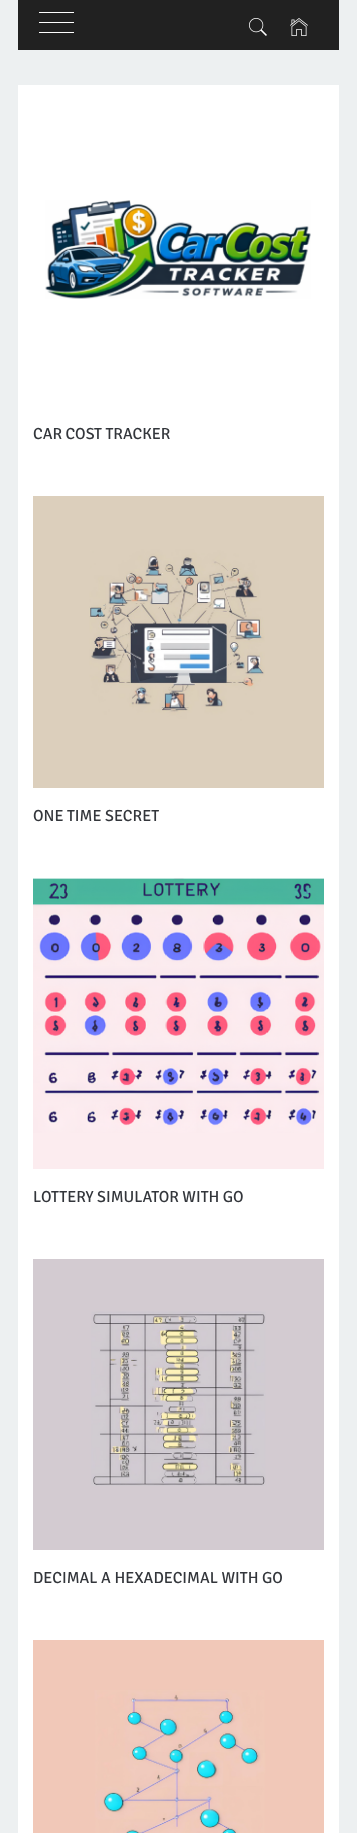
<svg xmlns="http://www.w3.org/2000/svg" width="357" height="1833">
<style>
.a{font:16px Signika;fill:#33363b}
</style>
<rect width="100%" height="100%" fill="#edf0f1"/>
<path fill="#212121" d="M18 0h321v50H18z"/>
<path fill="#fff" d="M39 12h35v1H39z"/>
<path fill="#fff" d="M39 22h35v1H39z"/>
<path fill="#fff" d="M39 32h35v1H39z"/>
<image href="1.png" x="249" y="18" width="18" height="18"/>
<image href="2.png" x="290" y="18" width="18" height="18"/>
<path fill="#fff" d="M18 85h321v1748H18z"/>
<image href="3.png" x="45" y="200" width="266" height="99"/>
<image href="4.png" x="33" y="496" width="291" height="292"/>
<image href="5.png" x="33" y="878" width="291" height="291"/>
<image href="6.png" x="33" y="1259" width="291" height="291"/>
<image href="7.png" x="33" y="1640" width="291" height="193"/>
<text class="a" x="33" y="439">CAR COST TRACKER</text>
<text class="a" x="33" y="821">ONE TIME SECRET</text>
<text class="a" x="33" y="1202">LOTTERY SIMULATOR WITH GO</text>
<text class="a" x="33" y="1583">DECIMAL A HEXADECIMAL WITH GO</text>
</svg>
